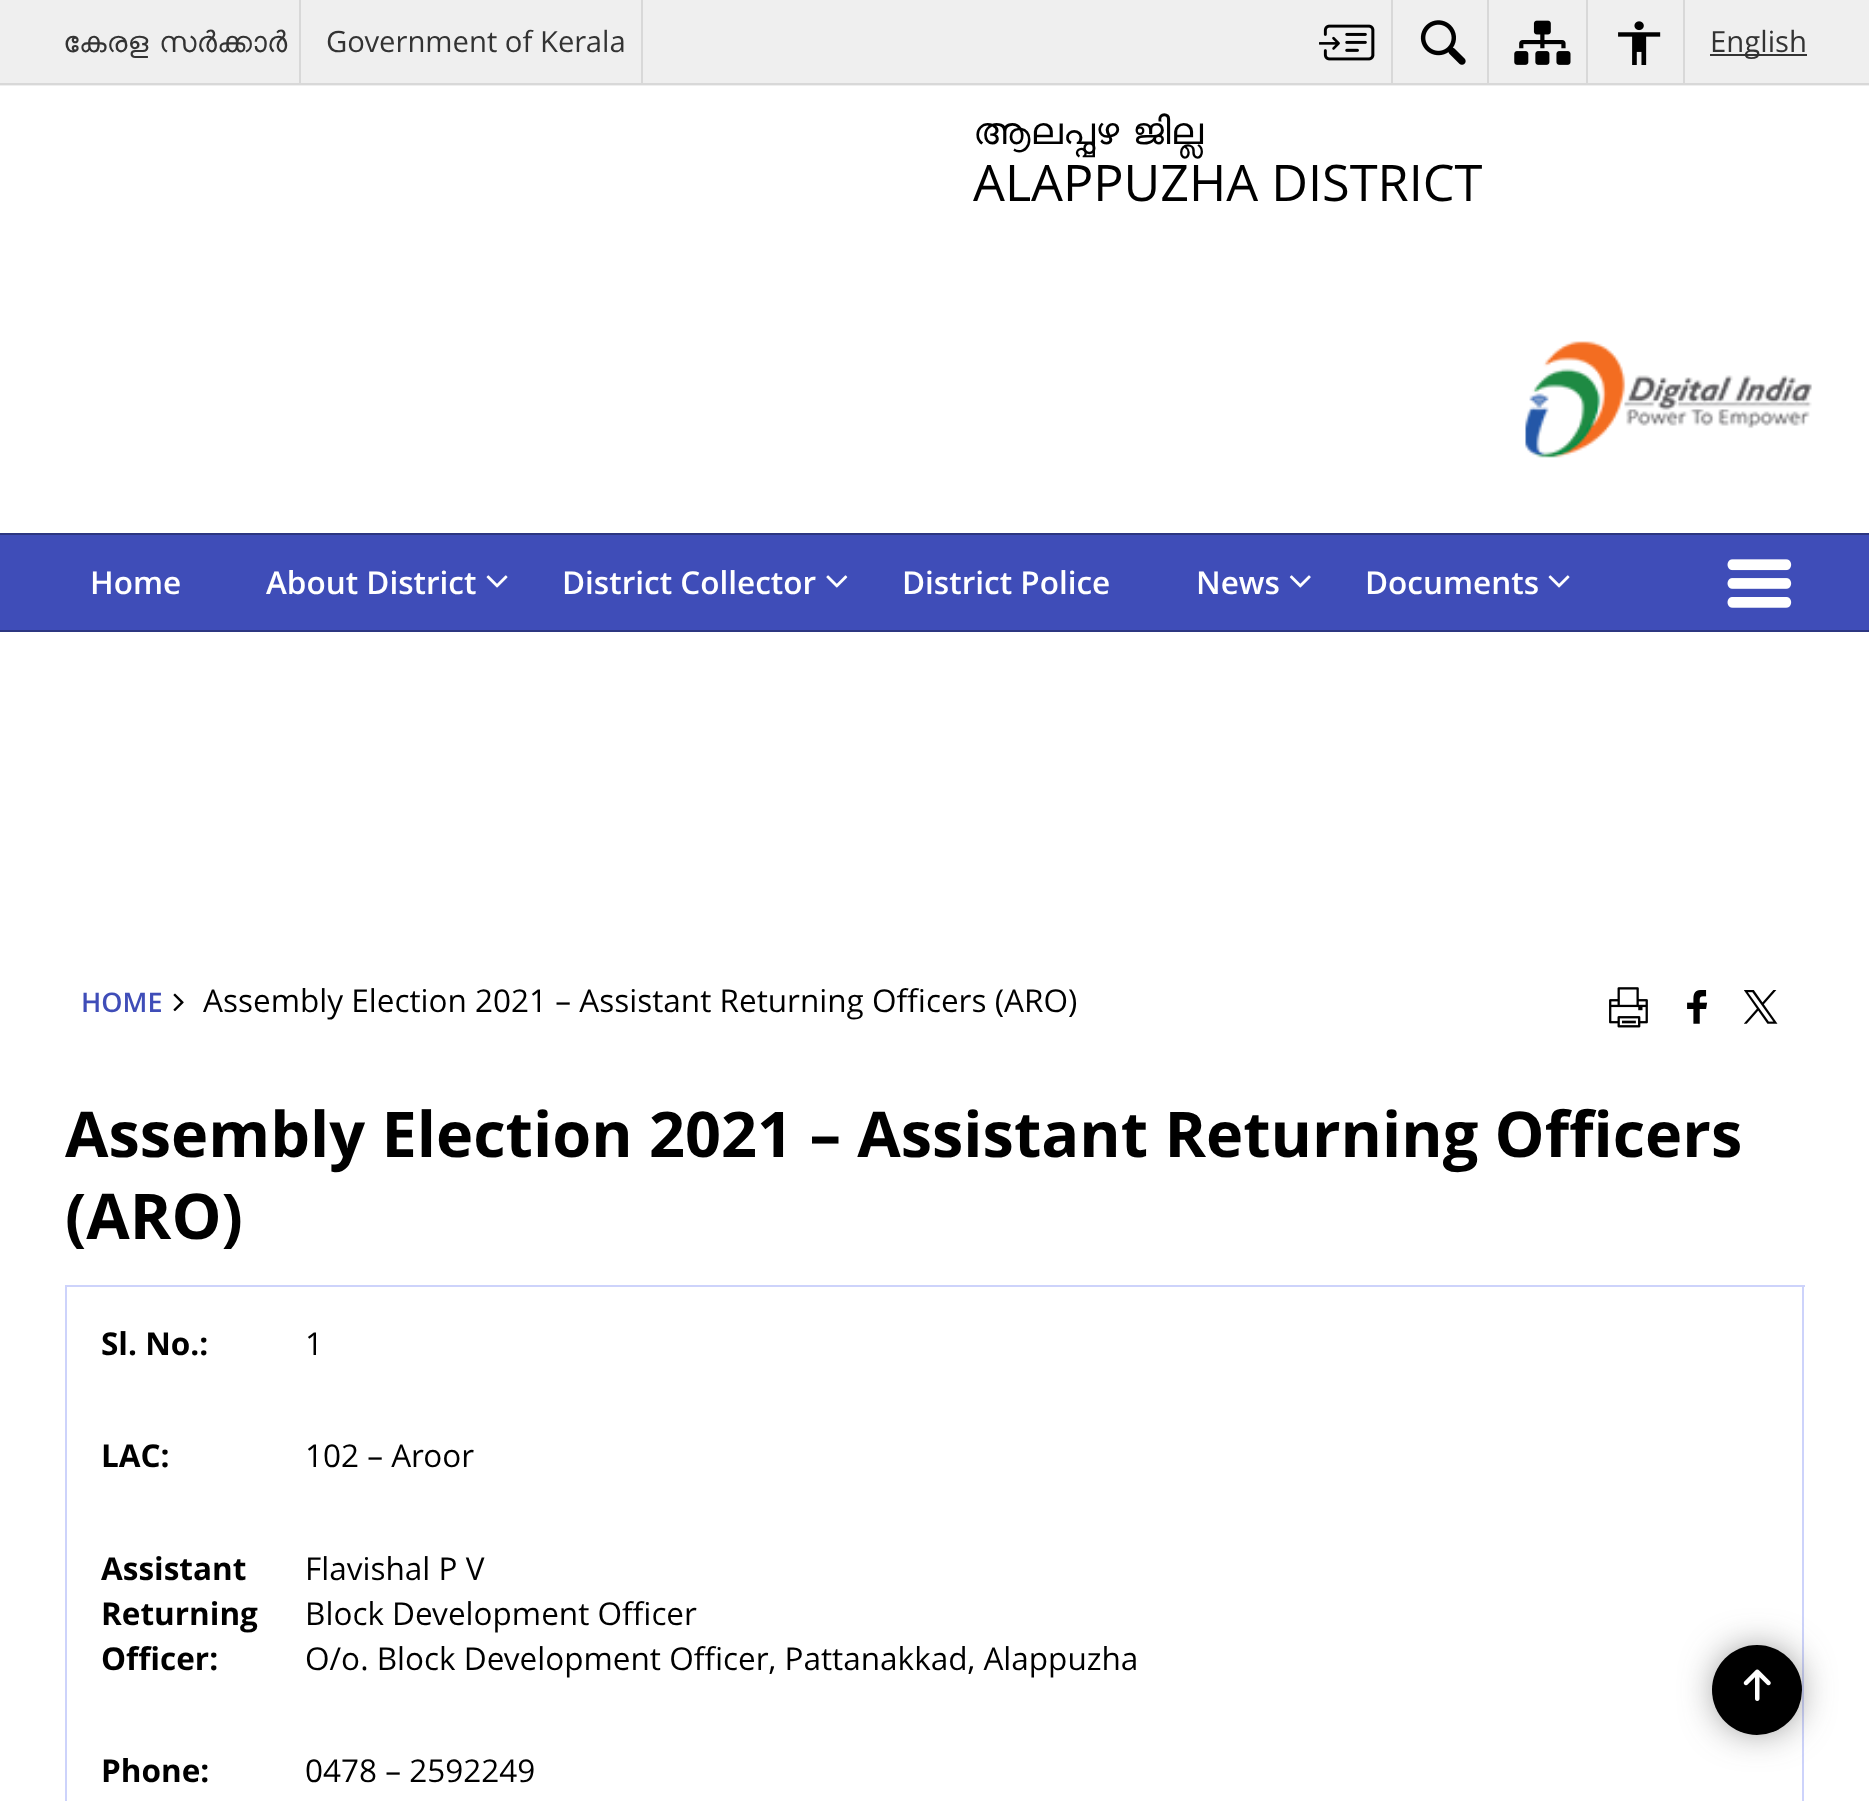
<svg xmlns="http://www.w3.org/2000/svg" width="1869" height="1801">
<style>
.a{font:29.25px FreeSans;fill:#333}
.b{font:29.25px Open Sans;fill:#333}
.c{font:37.75px FreeSans;fill:#000}
.d{font:50.4px Open Sans;fill:#000}
.e{font:600 31.5px Open Sans;fill:#fff}
.f{font:600 27px Open Sans;fill:#3f4db8}
.g{font:31.5px Open Sans;fill:#000}
.h{font:bold 63px Open Sans;fill:#000}
.i{font:bold 31.5px Open Sans;fill:#000}
</style>
<rect width="100%" height="100%" fill="#fff"/>
<path fill="#efefef" d="M0 0h1869v86H0z"/>
<path fill="#d8d8d8" d="M0 83h1869v2H0z"/>
<path fill="#d8d8d8" d="M299 0h2v83H299z"/>
<path fill="#d8d8d8" d="M641 0h2v83H641z"/>
<path fill="#d8d8d8" d="M1391 0h2v83H1391z"/>
<image href="1.png" x="1319" y="24" width="56" height="37"/>
<path fill="#d8d8d8" d="M1487 0h2v83H1487z"/>
<image href="2.png" x="1420" y="20" width="46" height="45"/>
<path fill="#d8d8d8" d="M1586 0h2v83H1586z"/>
<image href="3.png" x="1514" y="20" width="57" height="45"/>
<path fill="#d8d8d8" d="M1683 0h2v83H1683z"/>
<image href="4.png" x="1618" y="21" width="43" height="44"/>
<path fill="#333" d="M1710 54h97v2H1710z"/>
<image href="5.png" x="1525" y="341" width="287" height="117"/>
<path fill="#3f4db8" d="M0 535h1869v95H0z"/>
<path fill="#2c3681" d="M0 533h1869v2H0z"/>
<path fill="#2c3681" d="M0 630h1869v2H0z"/>
<image href="6.png" x="486" y="575" width="22" height="13"/>
<image href="7.png" x="826" y="575" width="22" height="13"/>
<image href="8.png" x="1289" y="575" width="22" height="13"/>
<image href="6.png" x="1548" y="575" width="22" height="13"/>
<image href="9.png" x="1727" y="559" width="65" height="49"/>
<image href="10.png" x="173" y="993" width="11" height="19"/>
<image href="11.png" x="1609" y="987" width="39" height="41"/>
<image href="12.png" x="1687" y="990" width="21" height="34"/>
<image href="13.png" x="1744" y="990" width="34" height="34"/>
<path fill="#cdd3fb" d="M65 1285h1740v2H65z"/>
<path fill="#cdd3fb" d="M1802 1285h2v516H1802z"/>
<path fill="#cdd3fb" d="M65 1285h2v516H65z"/>
<rect fill="#3c3c3c" filter="blur(21.5px)" x="1724" y="1656" width="67" height="68" rx="33.5"/>
<circle fill="#000" cx="1757" cy="1690" r="45"/>
<image href="14.png" x="1743" y="1669" width="28" height="32"/>
<text class="a" x="63" y="52" word-spacing="-1">കേരള സര്‍ക്കാര്‍</text>
<text class="b" x="326" y="52">Government of Kerala</text>
<text class="b" x="1710" y="52">English</text>
<text class="c" x="973" y="144" word-spacing="-2">ആലപ്പുഴ ജില്ല</text>
<text class="d" x="973" y="201">ALAPPUZHA DISTRICT</text>
<text class="e" x="90" y="594">Home</text>
<text class="e" x="266" y="594">About District</text>
<text class="e" x="562" y="594">District Collector</text>
<text class="e" x="902" y="594">District Police</text>
<text class="e" x="1196" y="594">News</text>
<text class="e" x="1365" y="594">Documents</text>
<text class="f" x="81" y="1012">HOME</text>
<text class="g" x="203" y="1012">Assembly Election 2021 – Assistant Returning Officers (ARO)</text>
<text class="h" x="65" y="1157">Assembly Election 2021 – Assistant Returning Officers</text>
<text class="h" x="65" y="1239">(ARO)</text>
<text class="i" x="101" y="1355">Sl. No.:</text>
<text class="g" x="305" y="1355">1</text>
<text class="i" x="101" y="1467">LAC:</text>
<text class="g" x="305" y="1467">102 – Aroor</text>
<text class="i" x="101" y="1580">Assistant</text>
<text class="i" x="101" y="1625">Returning</text>
<text class="i" x="101" y="1670">Officer:</text>
<text class="g" x="305" y="1580">Flavishal P V</text>
<text class="g" x="305" y="1625">Block Development Officer</text>
<text class="g" x="305" y="1670">O/o. Block Development Officer, Pattanakkad, Alappuzha</text>
<text class="i" x="101" y="1782">Phone:</text>
<text class="g" x="305" y="1782">0478 – 2592249</text>
</svg>
